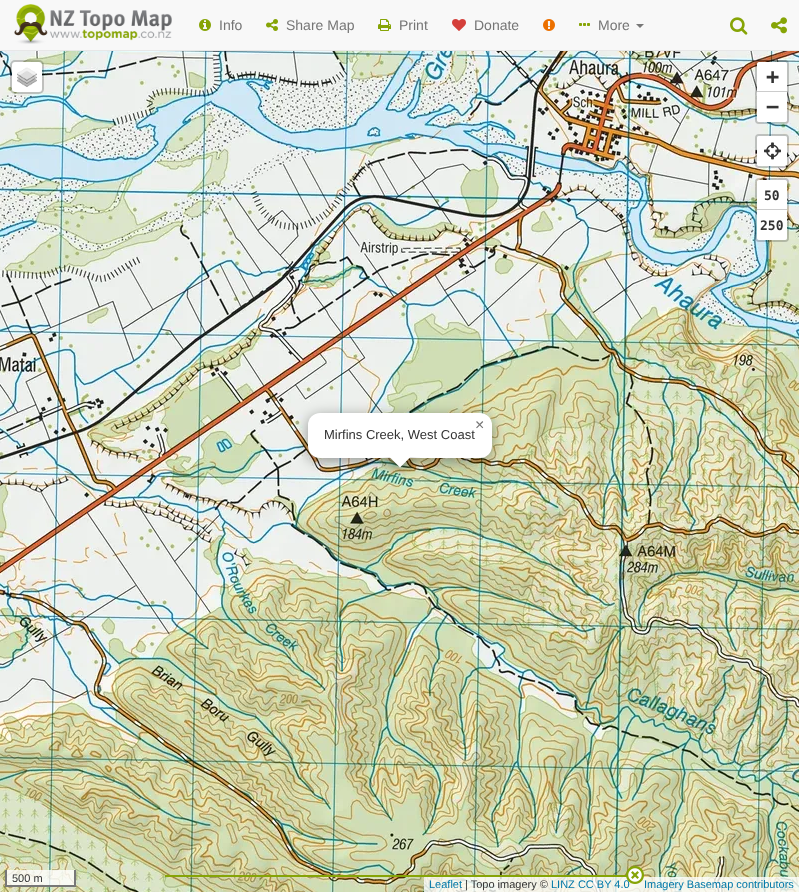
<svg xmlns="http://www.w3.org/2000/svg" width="799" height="892">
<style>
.a{font:14px Liberation Sans;fill:#757575}
.b{font:bold 22px DejaVu Sans Mono;fill:#333}
.c{font:bold 13px DejaVu Sans Mono;fill:#333}
.d{font:11px Liberation Sans;fill:#333}
.e{font:11px Liberation Sans;fill:#0078a8}
.f{font:16px Liberation Sans;fill:#757575}
.g{font:13px Liberation Sans;fill:#333}
</style>
<defs>
<clipPath id="clip1"><path d="M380 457h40v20H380z"/></clipPath>
<clipPath id="clip2"><path d="M380 457h40v20H380z"/></clipPath>
</defs>
<rect width="100%" height="100%" fill="#fff"/>
<path fill="#f8f8f8" d="M0 0h799v50H0z"/>
<path fill="#e7e7e7" d="M0 50h799v1H0z"/>
<image href="1.png" x="14" y="4" width="158" height="40"/>
<image href="2.png" x="199" y="19" width="12" height="12"/>
<image href="3.png" x="266" y="19" width="12" height="12"/>
<image href="4.png" x="378" y="19" width="13" height="12"/>
<image href="5.png" x="452" y="19" width="14" height="12"/>
<image href="6.png" x="543" y="19" width="12" height="12"/>
<image href="7.png" x="579" y="23" width="11" height="3"/>
<path fill="#777" d="M636 24h8l-4 4z"/>
<image href="8.png" x="730" y="17" width="18" height="18"/>
<image href="9.png" x="771" y="17" width="16" height="17"/>
<image href="13.png" x="0" y="51" width="87" height="236"/>
<rect fill="#fff" x="12" y="62" width="30" height="30" rx="3"/>
<rect fill="none" stroke="#00000033" stroke-width="2" x="11" y="61" width="32" height="32" rx="4"/>
<image href="10.png" x="17" y="67" width="20" height="20"/>
<image href="16.png" x="599" y="51" width="200" height="236"/>
<rect fill="none" stroke="#00000033" stroke-width="2" x="756" y="61" width="32" height="62" rx="3"/>
<path fill="#fff" d="M759 62h26c1 0 2 1 2 2v28h-30v-28c0-1 1-2 2-2z"/>
<path fill="#ccc" d="M757 91h30v1H757z"/>
<path fill="#fff" d="M757 92h30v28c0 1-1 2-2 2h-26c-1 0-2-1-2-2z"/>
<rect fill="none" stroke="#00000033" stroke-width="2" x="756" y="135" width="32" height="32" rx="3"/>
<rect fill="#fff" x="757" y="136" width="30" height="30" rx="2"/>
<image href="11.png" x="764" y="142" width="17" height="18"/>
<rect fill="none" stroke="#00000033" stroke-width="2" x="756" y="179" width="32" height="62" rx="3"/>
<path fill="#fff" d="M759 180h26c1 0 2 1 2 2v28h-30v-28c0-1 1-2 2-2z"/>
<path fill="#ccc" d="M757 209h30v1H757z"/>
<path fill="#fff" d="M757 210h30v28c0 1-1 2-2 2h-26c-1 0-2-1-2-2z"/>
<image href="25.png" x="0" y="799" width="87" height="93"/>
<path fill="#ffffffcc" d="M7 870h67v15H7z"/>
<path fill="#777" d="M74 870h2v17H74z"/>
<path fill="#777" d="M5 885h71v2H5z"/>
<path fill="#777" d="M5 870h2v17H5z"/>
<image href="26.png" x="87" y="799" width="256" height="93"/>
<image href="27.png" x="343" y="799" width="256" height="93"/>
<image href="28.png" x="599" y="799" width="200" height="93"/>
<path fill="#86a406" d="M165 875h470v2H165z"/>
<path fill="#ffffffcc" d="M424 877h375v15H424z"/>
<image href="14.png" x="87" y="51" width="256" height="236"/>
<image href="15.png" x="343" y="51" width="256" height="236"/>
<image href="17.png" x="0" y="287" width="87" height="256"/>
<image href="18.png" x="87" y="287" width="256" height="256"/>
<image href="19.png" x="343" y="287" width="256" height="256"/>
<image href="20.png" x="599" y="287" width="200" height="256"/>
<image href="21.png" x="0" y="543" width="87" height="256"/>
<image href="22.png" x="87" y="543" width="256" height="256"/>
<image href="23.png" x="343" y="543" width="256" height="256"/>
<image href="24.png" x="599" y="543" width="200" height="256"/>
<rect fill="#00000066" filter="blur(7px)" x="308" y="416" width="184" height="45" rx="12"/>
<rect fill="#fff" x="308" y="413" width="184" height="45" rx="12"/>
<g clip-path="url(#clip1)">
<path fill="#00000066" filter="blur(7px)" d="M392 450h17v17H392z"/>
</g>
<g clip-path="url(#clip2)">
<path fill="#fff" d="M400 443.5l12 12l-12 12l-12-12z"/>
</g>
<text class="a" x="219" y="30">Info</text>
<text class="a" x="286" y="30">Share Map</text>
<text class="a" x="399" y="30">Print</text>
<text class="a" x="474" y="30">Donate</text>
<text class="a" x="598" y="30">More</text>
<text class="b" x="766" y="84">+</text>
<text class="b" x="766" y="114">−</text>
<text class="c" x="764" y="200">50</text>
<text class="c" x="760" y="230">250</text>
<text class="d" x="12" y="882">500 m</text>
<text class="e" x="429" y="888">Leaflet</text>
<text class="d" x="465" y="888">| Topo imagery ©</text>
<text class="e" x="551" y="888">LINZ CC BY 4.0</text>
<image href="12.png" x="626" y="866" width="18" height="18"/>
<text class="e" x="644" y="888">Imagery Basemap contributors</text>
<text class="f" x="475" y="430">×</text>
<text class="g" x="324" y="439">Mirfins Creek, West Coast</text>
</svg>
